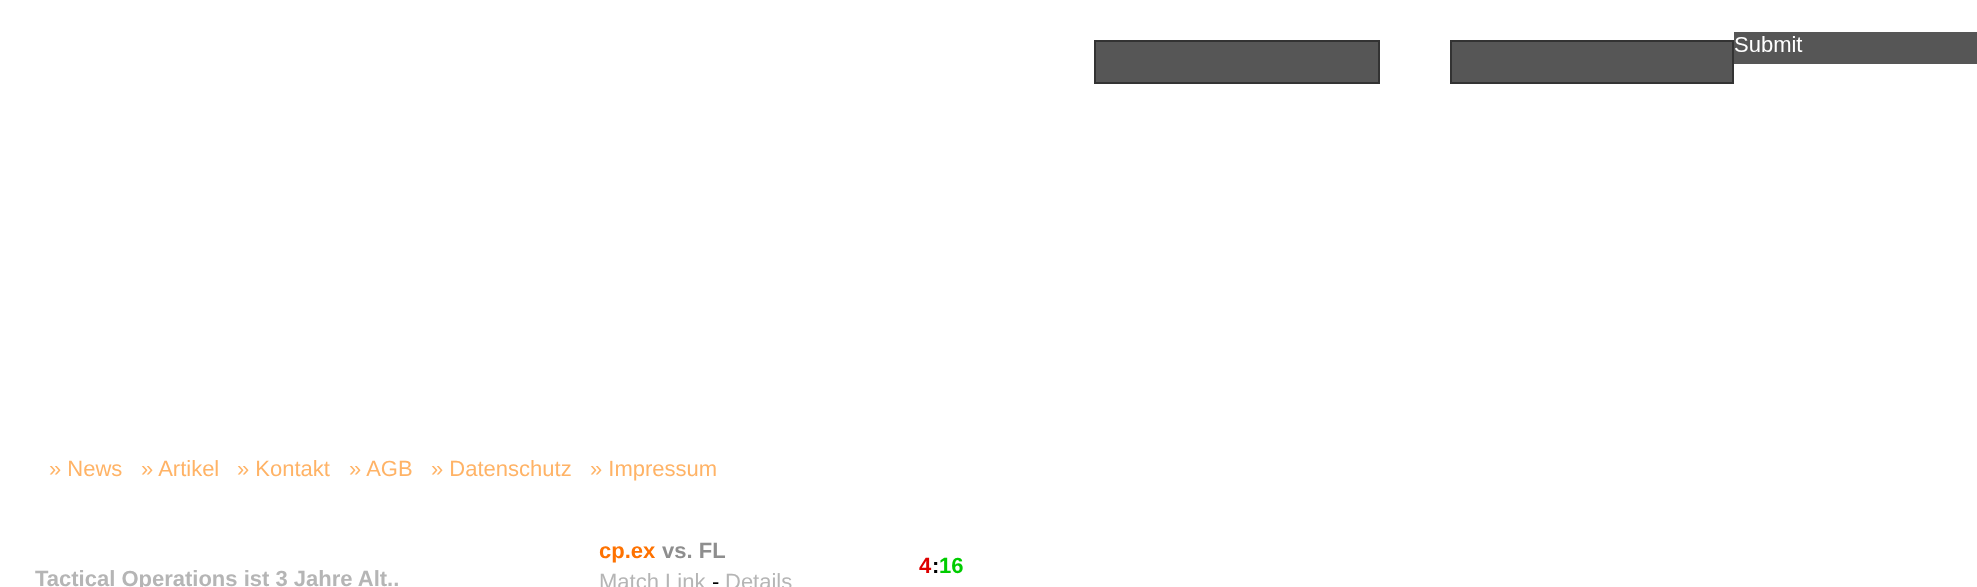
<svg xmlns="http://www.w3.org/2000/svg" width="1977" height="587">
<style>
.a{font:22px Liberation Sans;fill:#ffb366}
.b{font:bold 22px Liberation Sans;fill:#b5b5b5}
.c{font:bold 22px Liberation Sans;fill:#fe7201}
.d{font:bold 22px Liberation Sans;fill:#8e8e8e}
.e{font:bold 22px Liberation Sans;fill:#d00}
.f{font:bold 22px Liberation Sans;fill:#000}
.g{font:bold 22px Liberation Sans;fill:#0c0}
.h{font:22px Liberation Sans;fill:#b5b5b5}
.i{font:22px Liberation Sans;fill:#000}
</style>
<rect width="100%" height="100%" fill="#fff"/>
<path fill="#565656" stroke="#333" stroke-width="2" d="M1095 41h284v42H1095z"/>
<path fill="#565656" stroke="#333" stroke-width="2" d="M1451 41h282v42H1451z"/>
<path fill="#565656" d="M1734 32h243v32H1734z"/>
<image href="1.png" x="1735" y="36" width="68" height="16"/>
<text class="a" x="49" y="476">» News</text>
<text class="a" x="141" y="476">» Artikel</text>
<text class="a" x="237" y="476">» Kontakt</text>
<text class="a" x="349" y="476">» AGB</text>
<text class="a" x="431" y="476">» Datenschutz</text>
<text class="a" x="590" y="476">» Impressum</text>
<text class="b" x="35" y="586">Tactical Operations ist 3 Jahre Alt..</text>
<text class="c" x="599" y="558">cp.ex</text>
<text class="d" x="662" y="558">vs. FL</text>
<text class="e" x="919" y="573">4</text>
<text class="f" x="932" y="573">:</text>
<text class="g" x="939" y="573">16</text>
<text class="h" x="599" y="589">Match Link</text>
<text class="i" x="712" y="589">-</text>
<text class="h" x="725" y="589">Details</text>
</svg>
